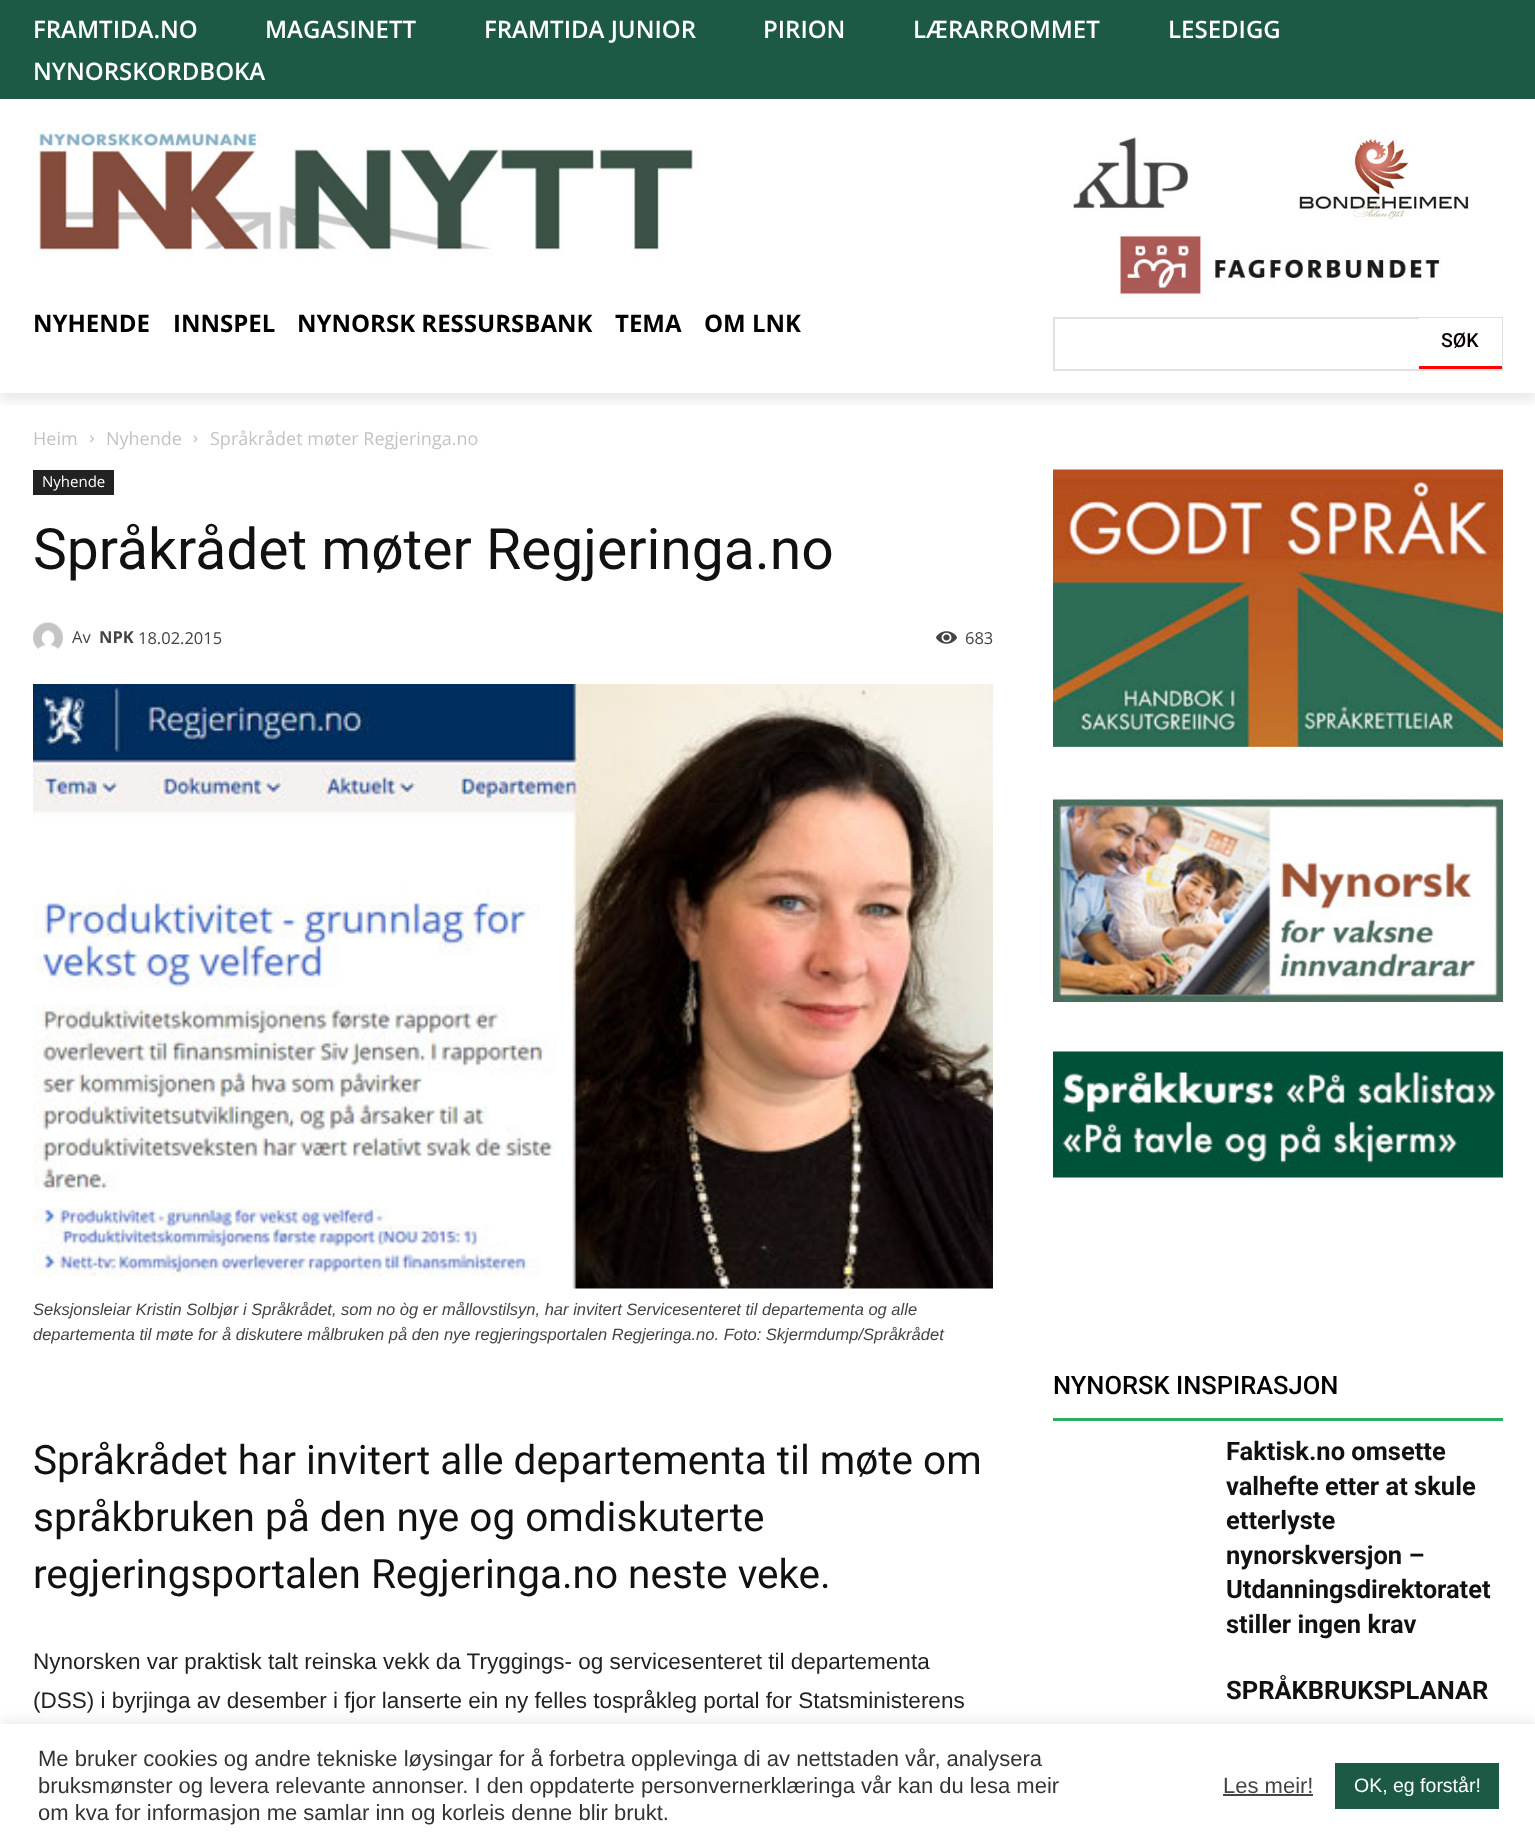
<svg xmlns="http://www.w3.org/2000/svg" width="1535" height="1846">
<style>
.a{font:600 24px Open Sans;fill:#fff}
.b{font:bold 24px Open Sans;fill:#000}
.c{font:500 19.5px Roboto;fill:#0a0002}
.d{font:18px Open Sans;fill:#c3c3c3}
.e{font:15px Open Sans;fill:#fff}
.f{font:57px Roboto;fill:#111}
.g{font:16.5px Open Sans;fill:#444}
.h{font:bold 16.5px Open Sans;fill:#444}
.i{font:italic 16.5px Liberation Sans;fill:#444}
.j{font:40.5px Roboto;fill:#111}
.k{font:22.5px Liberation Sans;fill:#222}
.l{font:500 25.5px Roboto;fill:#000}
.m{font:bold 25.5px Roboto;fill:#111}
.n{font:22px Liberation Sans;fill:#333}
.o{font:22px Liberation Sans;fill:#444}
.p{font:19.5px Liberation Sans;fill:#fff}
</style>
<defs>
<clipPath id="clip1"><path d="M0 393h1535v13H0z"/></clipPath>
</defs>
<rect width="100%" height="100%" fill="#fff"/>
<path fill="#1c5a46" d="M0 0h1535v99H0z"/>
<image href="1.png" x="33" y="129" width="665" height="128"/>
<image href="2.png" x="1073" y="137" width="115" height="74"/>
<image href="3.png" x="1299" y="135" width="170" height="86"/>
<image href="4.png" x="1117" y="234" width="325" height="65"/>
<path fill="none" stroke="#e1e1e1" stroke-width="2" d="M1054 318h448v52H1054z"/>
<path fill="#fff" d="M1419 318h83v48H1419z"/>
<path fill="#f00" d="M1419 366h83v3H1419z"/>
<g clip-path="url(#clip1)">
<path fill="#00000014" filter="blur(6px)" d="M0 9h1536v393H0z"/>
</g>
<image href="5.png" x="90" y="435" width="4" height="8"/>
<image href="6.png" x="193" y="435" width="5" height="8"/>
<path fill="#222" d="M33 470h81v25H33z"/>
<image href="7.png" x="33" y="622" width="30" height="28"/>
<image href="8.png" x="936" y="631" width="21" height="13"/>
<image href="9.png" x="33" y="684" width="960" height="605"/>
<image href="10.png" x="1053" y="469" width="450" height="278"/>
<image href="11.png" x="1053" y="799" width="450" height="203"/>
<image href="12.png" x="1053" y="1051" width="450" height="127"/>
<path fill="#27ae60" d="M1053 1418h450v3H1053z"/>
<path fill="#acabab4d" filter="blur(7.5px)" d="M0 1722h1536v123H0z"/>
<path fill="#fff" d="M0 1724h1535v122H0z"/>
<path fill="#444" d="M1223 1794h90v2H1223z"/>
<path fill="#1c5a46" d="M1335 1763h164v46H1335z"/>
<text class="a" x="33" y="38">FRAMTIDA.NO</text>
<text class="a" x="265" y="38">MAGASINETT</text>
<text class="a" x="484" y="38">FRAMTIDA JUNIOR</text>
<text class="a" x="763" y="38">PIRION</text>
<text class="a" x="913" y="38">LÆRARROMMET</text>
<text class="a" x="1168" y="38">LESEDIGG</text>
<text class="a" x="33" y="80">NYNORSKORDBOKA</text>
<text class="b" x="33" y="332">NYHENDE</text>
<text class="b" x="173" y="332">INNSPEL</text>
<text class="b" x="297" y="332">NYNORSK RESSURSBANK</text>
<text class="b" x="615" y="332">TEMA</text>
<text class="b" x="704" y="332">OM LNK</text>
<text class="c" x="1441" y="347">SØK</text>
<text class="d" x="33" y="445">Heim</text>
<text class="d" x="106" y="445">Nyhende</text>
<text class="d" x="210" y="445">Språkrådet møter Regjeringa.no</text>
<text class="e" x="42" y="487">Nyhende</text>
<text class="f" x="33" y="569">Språkrådet møter Regjeringa.no</text>
<text class="g" x="72" y="643">Av</text>
<text class="h" x="99" y="643">NPK</text>
<text class="g" x="138" y="644">18.02.2015</text>
<text class="g" x="965" y="644">683</text>
<text class="i" x="33" y="1315">Seksjonsleiar Kristin Solbjør i Språkrådet, som no òg er mållovstilsyn, har invitert Servicesenteret til departementa og alle</text>
<text class="i" x="33" y="1340">departementa til møte for å diskutere målbruken på den nye regjeringsportalen Regjeringa.no. Foto: Skjermdump/Språkrådet</text>
<text class="j" x="33" y="1474">Språkrådet har invitert alle departementa til møte om</text>
<text class="j" x="33" y="1531">språkbruken på den nye og omdiskuterte</text>
<text class="j" x="33" y="1588">regjeringsportalen Regjeringa.no neste veke.</text>
<text class="k" x="33" y="1669">Nynorsken var praktisk talt reinska vekk da Tryggings- og servicesenteret til departementa</text>
<text class="k" x="33" y="1708">(DSS) i byrjinga av desember i fjor lanserte ein ny felles tospråkleg portal for Statsministerens</text>
<text class="l" x="1053" y="1394">NYNORSK INSPIRASJON</text>
<text class="m" x="1226" y="1460">Faktisk.no omsette</text>
<text class="m" x="1226" y="1495">valhefte etter at skule</text>
<text class="m" x="1226" y="1529">etterlyste</text>
<text class="m" x="1226" y="1564">nynorskversjon –</text>
<text class="m" x="1226" y="1598">Utdanningsdirektoratet</text>
<text class="m" x="1226" y="1633">stiller ingen krav</text>
<text class="m" x="1226" y="1699">SPRÅKBRUKSPLANAR</text>
<text class="n" x="38" y="1766">Me bruker cookies og andre tekniske løysingar for å forbetra opplevinga di av nettstaden vår, analysera</text>
<text class="n" x="38" y="1793">bruksmønster og levera relevante annonser. I den oppdaterte personvernerklæringa vår kan du lesa meir</text>
<text class="n" x="38" y="1820">om kva for informasjon me samlar inn og korleis denne blir brukt.</text>
<text class="o" x="1223" y="1793">Les meir!</text>
<text class="p" x="1354" y="1792">OK, eg forstår!</text>
</svg>
